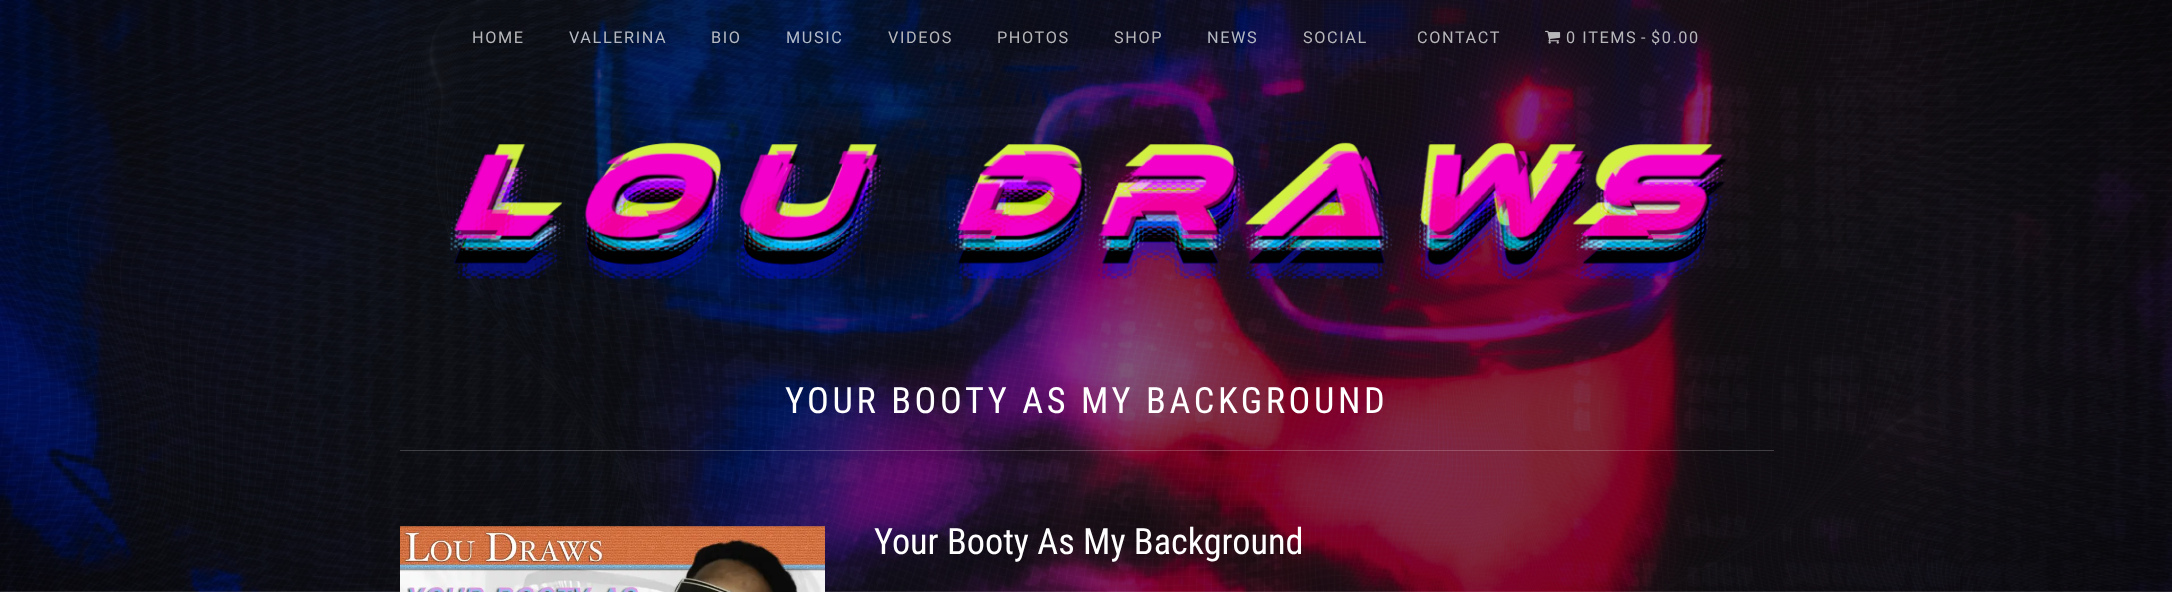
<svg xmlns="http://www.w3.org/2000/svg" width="2172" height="592">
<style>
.a{font:16.25px Roboto;letter-spacing:1.6px;fill:#b7b7ba}
.b{font:16.25px Roboto;letter-spacing:1.6px;fill:#b5b9c2}
.c{font:16.25px Roboto;letter-spacing:1.6px;fill:#b3bac8}
.d{font:36.25px Roboto Condensed;letter-spacing:3.6px;fill:#fff}
.e{font:36.25px Roboto Condensed;fill:#fff}
</style>
<rect width="100%" height="100%" fill="#fff"/>
<image href="1.png" x="0" y="0" width="2172" height="592"/>
<image href="2.png" x="1545" y="30" width="16" height="14"/>
<image href="3.png" x="450" y="141" width="1278" height="139"/>
<path fill="#ffffff33" d="M400 450h1374v1H400z"/>
<image href="4.png" x="400" y="526" width="425" height="66"/>
<text class="a" x="472" y="43">HOME</text>
<text class="b" x="569" y="43">VALLERINA</text>
<text class="b" x="711" y="43">BIO</text>
<text class="c" x="786" y="43">MUSIC</text>
<text class="a" x="888" y="43">VIDEOS</text>
<text class="a" x="997" y="43">PHOTOS</text>
<text class="a" x="1114" y="43">SHOP</text>
<text class="b" x="1207" y="43">NEWS</text>
<text class="a" x="1303" y="43">SOCIAL</text>
<text class="a" x="1417" y="43">CONTACT</text>
<text class="a" x="1566" y="43">0 ITEMS</text>
<text class="a" x="1641" y="43">-</text>
<text class="a" x="1651" y="43">$0.00</text>
<text class="d" x="785" y="413">YOUR BOOTY AS MY BACKGROUND</text>
<text class="e" x="874" y="554">Your Booty As My Background</text>
</svg>
